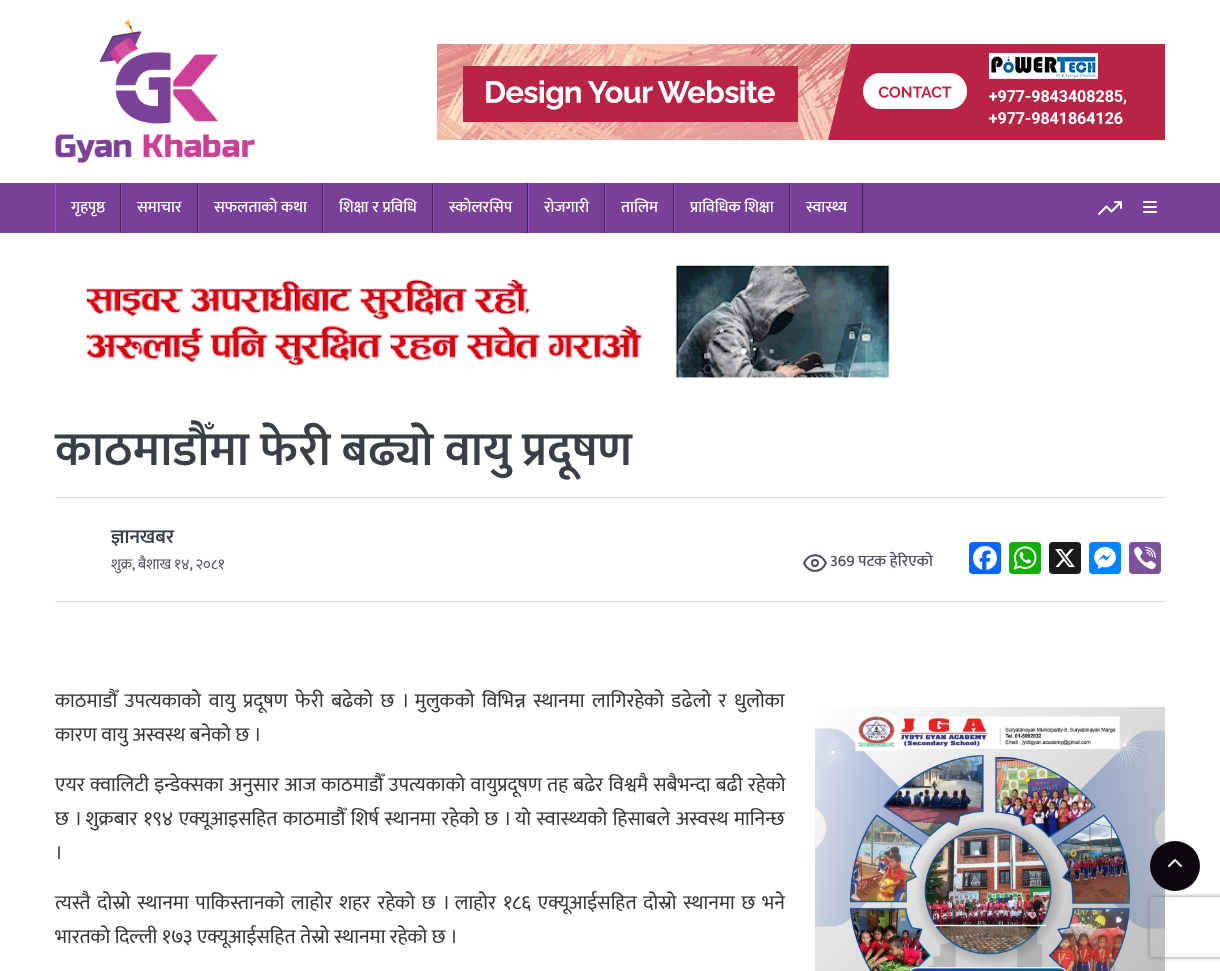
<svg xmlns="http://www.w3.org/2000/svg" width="1220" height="971">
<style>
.a{font:500 16px Mukta;fill:#fff}
.b{font:600 48px Mukta;fill:#393e49}
.c{font:600 19.5px Mukta;fill:#393e49}
.d{font:15px Mukta;fill:#4d515b}
.e{font:500 16px Mukta;fill:#4d515b}
.f{font:20px Mukta;fill:#333}
</style>
<defs>
<clipPath id="clip1"><path d="M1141 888h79v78h-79zm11 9h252c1 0 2 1 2 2v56c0 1-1 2-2 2h-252c-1 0-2-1-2-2v-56c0-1 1-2 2-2z" clip-rule="evenodd"/></clipPath>
</defs>
<rect width="100%" height="100%" fill="#fff"/>
<image href="1.png" x="55" y="20" width="200" height="143"/>
<image href="2.png" x="437" y="44" width="728" height="96"/>
<path fill="#7a3f98" d="M0 183h1220v50H0z"/>
<path fill="#412252" d="M120 183h1v50H120z"/>
<path fill="#9c50c2" d="M55 183h1v50H55z"/>
<path fill="#412252" d="M197 183h1v50H197z"/>
<path fill="#9c50c2" d="M121 183h1v50H121z"/>
<path fill="#412252" d="M322 183h1v50H322z"/>
<path fill="#9c50c2" d="M198 183h1v50H198z"/>
<path fill="#412252" d="M432 183h1v50H432z"/>
<path fill="#9c50c2" d="M323 183h1v50H323z"/>
<path fill="#412252" d="M527 183h1v50H527z"/>
<path fill="#9c50c2" d="M433 183h1v50H433z"/>
<path fill="#412252" d="M604 183h1v50H604z"/>
<path fill="#9c50c2" d="M528 183h1v50H528z"/>
<path fill="#412252" d="M673 183h1v50H673z"/>
<path fill="#9c50c2" d="M605 183h1v50H605z"/>
<path fill="#412252" d="M789 183h1v50H789z"/>
<path fill="#9c50c2" d="M674 183h1v50H674z"/>
<path fill="#412252" d="M862 183h1v50H862z"/>
<path fill="#9c50c2" d="M790 183h1v50H790z"/>
<path fill="none" stroke="#fff" stroke-width="2" stroke-linecap="round" stroke-linejoin="round" d="M1121 202l-9.5 9.5l-5-5l-7.5 7.5m16-12h6v6"/>
<image href="3.png" x="1143" y="201" width="14" height="12"/>
<image href="4.png" x="86" y="264" width="804" height="115"/>
<path fill="#ddd" d="M55 497h1110v1H55z"/>
<path fill="#ddd" d="M55 601h1110v1H55z"/>
<path fill="none" stroke="#4d515b" stroke-width="2" stroke-linecap="round" stroke-linejoin="round" d="M804 563c5-10.5 17-10.5 22 0c-5 10.5-17 10.5-22 0z"/>
<circle fill="none" stroke="#4d515b" stroke-width="2" cx="815" cy="563" r="3"/>
<rect fill="#0866ff" x="969" y="542" width="32" height="32" rx="4"/>
<image href="5.png" x="973" y="546" width="24" height="24"/>
<rect fill="#12af0a" x="1009" y="542" width="32" height="32" rx="4"/>
<image href="6.png" x="1013" y="546" width="24" height="24"/>
<rect fill="#1a1a1a" x="1049" y="542" width="32" height="32" rx="4"/>
<image href="7.png" x="1055" y="549" width="20" height="19"/>
<rect fill="#0084ff" x="1089" y="542" width="32" height="32" rx="4"/>
<image href="8.png" x="1094" y="547" width="22" height="22"/>
<rect fill="#7c529e" x="1129" y="542" width="32" height="32" rx="4"/>
<image href="9.png" x="1134" y="546" width="22" height="24"/>
<image href="10.png" x="815" y="707" width="350" height="264"/>
<g clip-path="url(#clip1)">
<rect fill="#808080" filter="blur(2.5px)" x="1150" y="897" width="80" height="60" rx="2"/>
</g>
<circle fill="#0c060f" cx="1175" cy="866" r="25"/>
<image href="11.png" x="1168" y="859" width="14" height="8"/>
<text class="a" x="71" y="212">गृहपृष्ठ</text>
<text class="a" x="137" y="212">समाचार</text>
<text class="a" x="214" y="212">सफलताको कथा</text>
<text class="a" x="339" y="212">शिक्षा र प्रविधि</text>
<text class="a" x="449" y="212">स्कोलरसिप</text>
<text class="a" x="544" y="212">रोजगारी</text>
<text class="a" x="621" y="212">तालिम</text>
<text class="a" x="690" y="212">प्राविधिक शिक्षा</text>
<text class="a" x="806" y="212">स्वास्थ्य</text>
<text class="b" x="55" y="465">काठमाडौँमा फेरी बढ्यो वायु प्रदूषण</text>
<text class="c" x="111" y="543">ज्ञानखबर</text>
<text class="d" x="111" y="569" word-spacing="-0.5">शुक्र, बैशाख १४, २०८१</text>
<text class="e" x="830" y="566">369 पटक हेरिएको</text>
<text class="f" x="55" y="707" word-spacing="3">काठमाडौँ उपत्यकाको वायु प्रदूषण फेरी बढेको छ । मुलुकको विभिन्न स्थानमा लागिरहेको डढेलो र धुलोका</text>
<text class="f" x="55" y="741">कारण वायु अस्वस्थ बनेको छ ।</text>
<text class="f" x="55" y="791" word-spacing="0.75">एयर क्वालिटी इन्डेक्सका अनुसार आज काठमाडौँ उपत्यकाको वायुप्रदूषण तह बढेर विश्वमै सबैभन्दा बढी रहेको</text>
<text class="f" x="55" y="825" word-spacing="1.1">छ । शुक्रबार १९४ एक्यूआइसहित काठमाडौँ शिर्ष स्थानमा रहेको छ । यो स्वास्थ्यको हिसाबले अस्वस्थ मानिन्छ</text>
<text class="f" x="55" y="859">।</text>
<text class="f" x="55" y="909" word-spacing="2.4">त्यस्तै दोस्रो स्थानमा पाकिस्तानको लाहोर शहर रहेको छ । लाहोर १८६ एक्यूआईसहित दोस्रो स्थानमा छ भने</text>
<text class="f" x="55" y="943">भारतको दिल्ली १७३ एक्यूआईसहित तेस्रो स्थानमा रहेको छ ।</text>
</svg>
